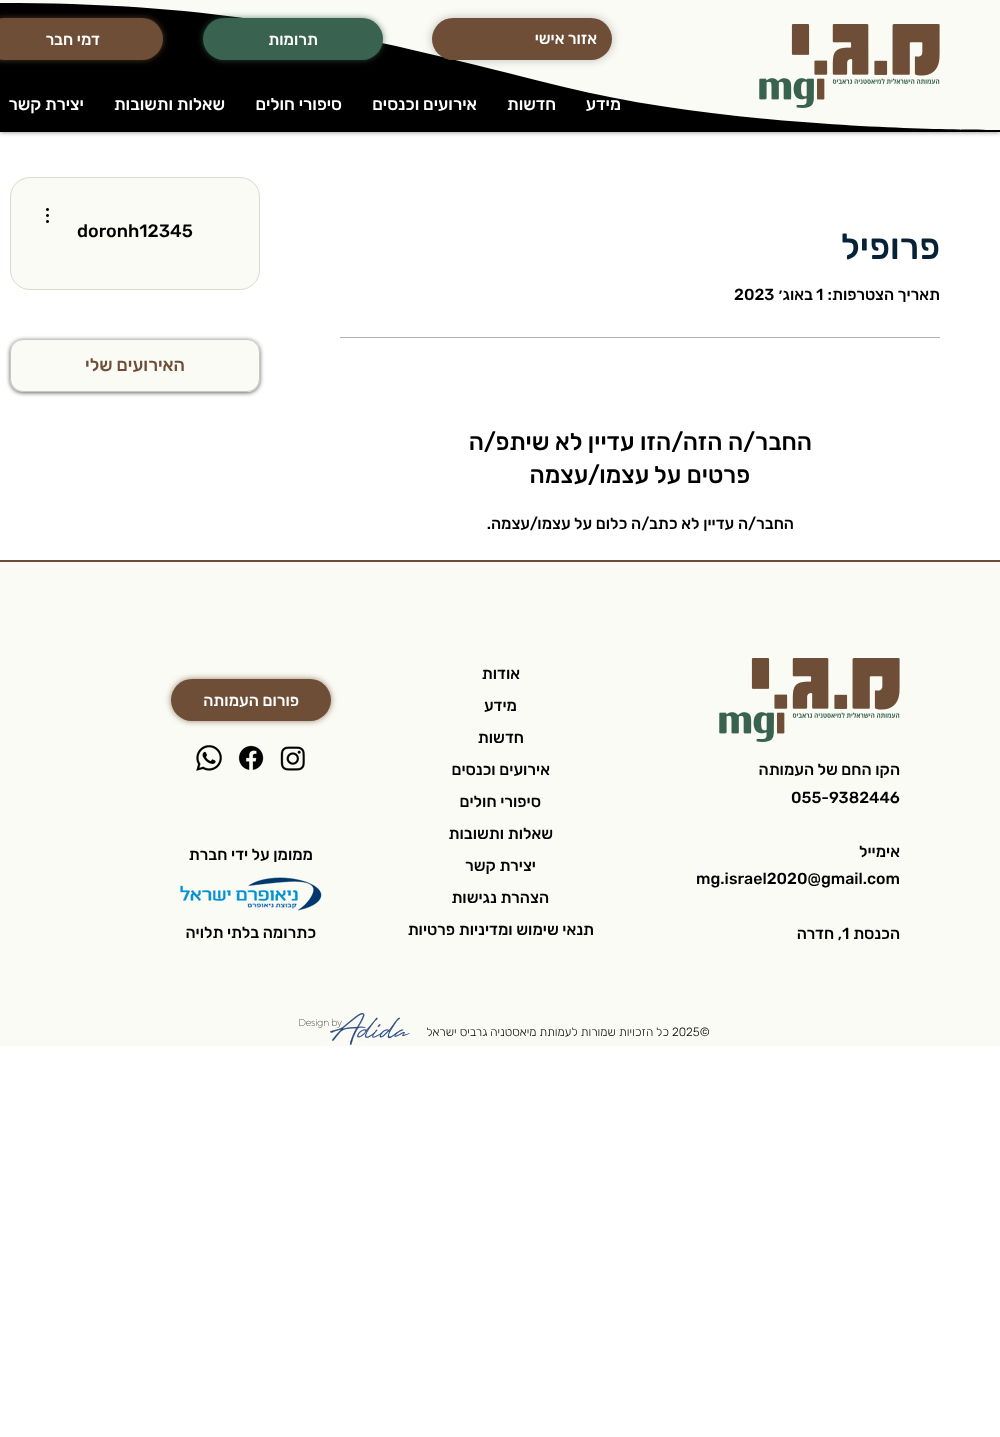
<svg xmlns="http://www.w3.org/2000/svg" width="1000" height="1437">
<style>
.a{font:500 16px Rubik;direction:rtl;fill:#fff}
.b{font:500 17px Rubik;direction:rtl;fill:#fff}
.c{font:500 36px Rubik;direction:rtl;fill:#072136}
.d{font:500 16px Rubik;direction:rtl;fill:#000}
.e{font:500 16px Rubik;fill:#000}
.f{font:500 24px Rubik;direction:rtl;fill:#000}
.g{font:500 18px Rubik;fill:#000}
.h{font:500 18px Rubik;direction:rtl;fill:#6f4e37}
.i{font:300 12px Rubik;fill:#000}
.j{font:300 12px Rubik;direction:rtl;fill:#000}
</style>
<rect width="100%" height="100%" fill="#fff"/>
<path fill="#00000080" filter="blur(2.5px)" d="M0 0h1000v132H0z"/>
<path fill="#000" d="M0 3h1000v129H0z"/>
<path fill="#fafbf4" d="M0 0v3c237 0 360 33 564 84c181 45 436 43 436 43v-130z"/>
<image href="1.png" x="759" y="24" width="181" height="84"/>
<rect fill="#00000033" filter="blur(4px)" x="431" y="17" width="182" height="44" rx="22"/>
<rect fill="#6f4e37" x="432" y="18" width="180" height="42" rx="21"/>
<rect fill="#396250b3" filter="blur(3px)" x="203" y="18" width="180" height="42" rx="21"/>
<rect fill="#396250" x="203" y="18" width="180" height="42" rx="21"/>
<rect fill="#6f4e37b3" filter="blur(3px)" x="-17" y="18" width="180" height="42" rx="21"/>
<rect fill="#6f4e37" x="-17" y="18" width="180" height="42" rx="21"/>
<path fill="#b3b3b3" d="M340 337h600v1H340z"/>
<rect fill="#fafbf4" x="10" y="177" width="250" height="113" rx="20"/>
<rect fill="none" stroke="#6f4e3733" x="10.5" y="177.5" width="249" height="112" rx="19.5"/>
<image href="2.png" x="46" y="208" width="3" height="15"/>
<rect fill="#00000099" filter="blur(2px)" x="10" y="340" width="250" height="53" rx="13"/>
<rect fill="#fafbf4" x="10" y="339" width="250" height="53" rx="13"/>
<rect fill="none" stroke="#00000033" x="10.5" y="339.5" width="249" height="52" rx="12.5"/>
<path fill="#fafbf4" d="M0 562h1000v484H0z"/>
<path fill="#6f4e37" d="M0 560h1000v2H0z"/>
<image href="1.png" x="719" y="658" width="181" height="84"/>
<rect fill="#6f4e37b3" filter="blur(3px)" x="171" y="679" width="160" height="42" rx="21"/>
<rect fill="#6f4e37" x="171" y="679" width="160" height="42" rx="21"/>
<image href="3.png" x="280" y="746" width="25" height="25"/>
<image href="4.png" x="238" y="745" width="26" height="25"/>
<image href="5.png" x="196" y="745" width="26" height="26"/>
<image href="6.png" x="180" y="877" width="142" height="34"/>
<image href="7.png" x="299" y="1013" width="111" height="32"/>
<text class="a" x="597" y="44">אזור אישי</text>
<text class="a" x="318" y="45">תרומות</text>
<text class="a" x="100" y="45">דמי חבר</text>
<text class="b" x="621" y="110">מידע</text>
<text class="b" x="556" y="110">חדשות</text>
<text class="b" x="477" y="110">אירועים וכנסים</text>
<text class="b" x="342" y="110">סיפורי חולים</text>
<text class="b" x="225" y="110">שאלות ותשובות</text>
<text class="b" x="84" y="110">יצירת קשר</text>
<text class="c" x="940" y="259">פרופיל</text>
<text class="d" x="940" y="300">תאריך הצטרפות:</text>
<text class="e" x="816" y="300">1</text>
<text class="d" x="813" y="300">באוג׳</text>
<text class="e" x="734" y="300">2023</text>
<text class="f" x="812" y="450">החבר/ה הזה/הזו עדיין לא שיתפ/ה</text>
<text class="f" x="750" y="483">פרטים על עצמו/עצמה</text>
<text class="d" x="794" y="529">החבר/ה עדיין לא כתב/ה כלום על עצמו/עצמה.</text>
<text class="g" x="77" y="237">doronh12345</text>
<text class="h" x="185" y="371">האירועים שלי</text>
<text class="d" x="900" y="775">הקו החם של העמותה</text>
<text class="e" x="791" y="803">055-9382446</text>
<text class="d" x="900" y="857">אימייל</text>
<text class="e" x="696" y="884">mg.israel2020@gmail.com</text>
<text class="d" x="900" y="939">הכנסת</text>
<text class="e" x="842" y="939">1</text>
<text class="d" x="842" y="939">, חדרה</text>
<text class="d" x="520" y="679">אודות</text>
<text class="d" x="517" y="711">מידע</text>
<text class="d" x="524" y="743">חדשות</text>
<text class="d" x="550" y="775">אירועים וכנסים</text>
<text class="d" x="541" y="807">סיפורי חולים</text>
<text class="d" x="553" y="839">שאלות ותשובות</text>
<text class="d" x="536" y="871">יצירת קשר</text>
<text class="d" x="549" y="903">הצהרת נגישות</text>
<text class="d" x="594" y="935">תנאי שימוש ומדיניות פרטיות</text>
<text class="a" x="299" y="706">פורום העמותה</text>
<text class="d" x="313" y="860">ממומן על ידי חברת</text>
<text class="d" x="316" y="938">כתרומה בלתי תלויה</text>
<text class="i" x="672" y="1036">2025©</text>
<text class="j" x="669" y="1036">כל הזכויות שמורות לעמותת מיאסטניה גרביס ישראל</text>
</svg>
